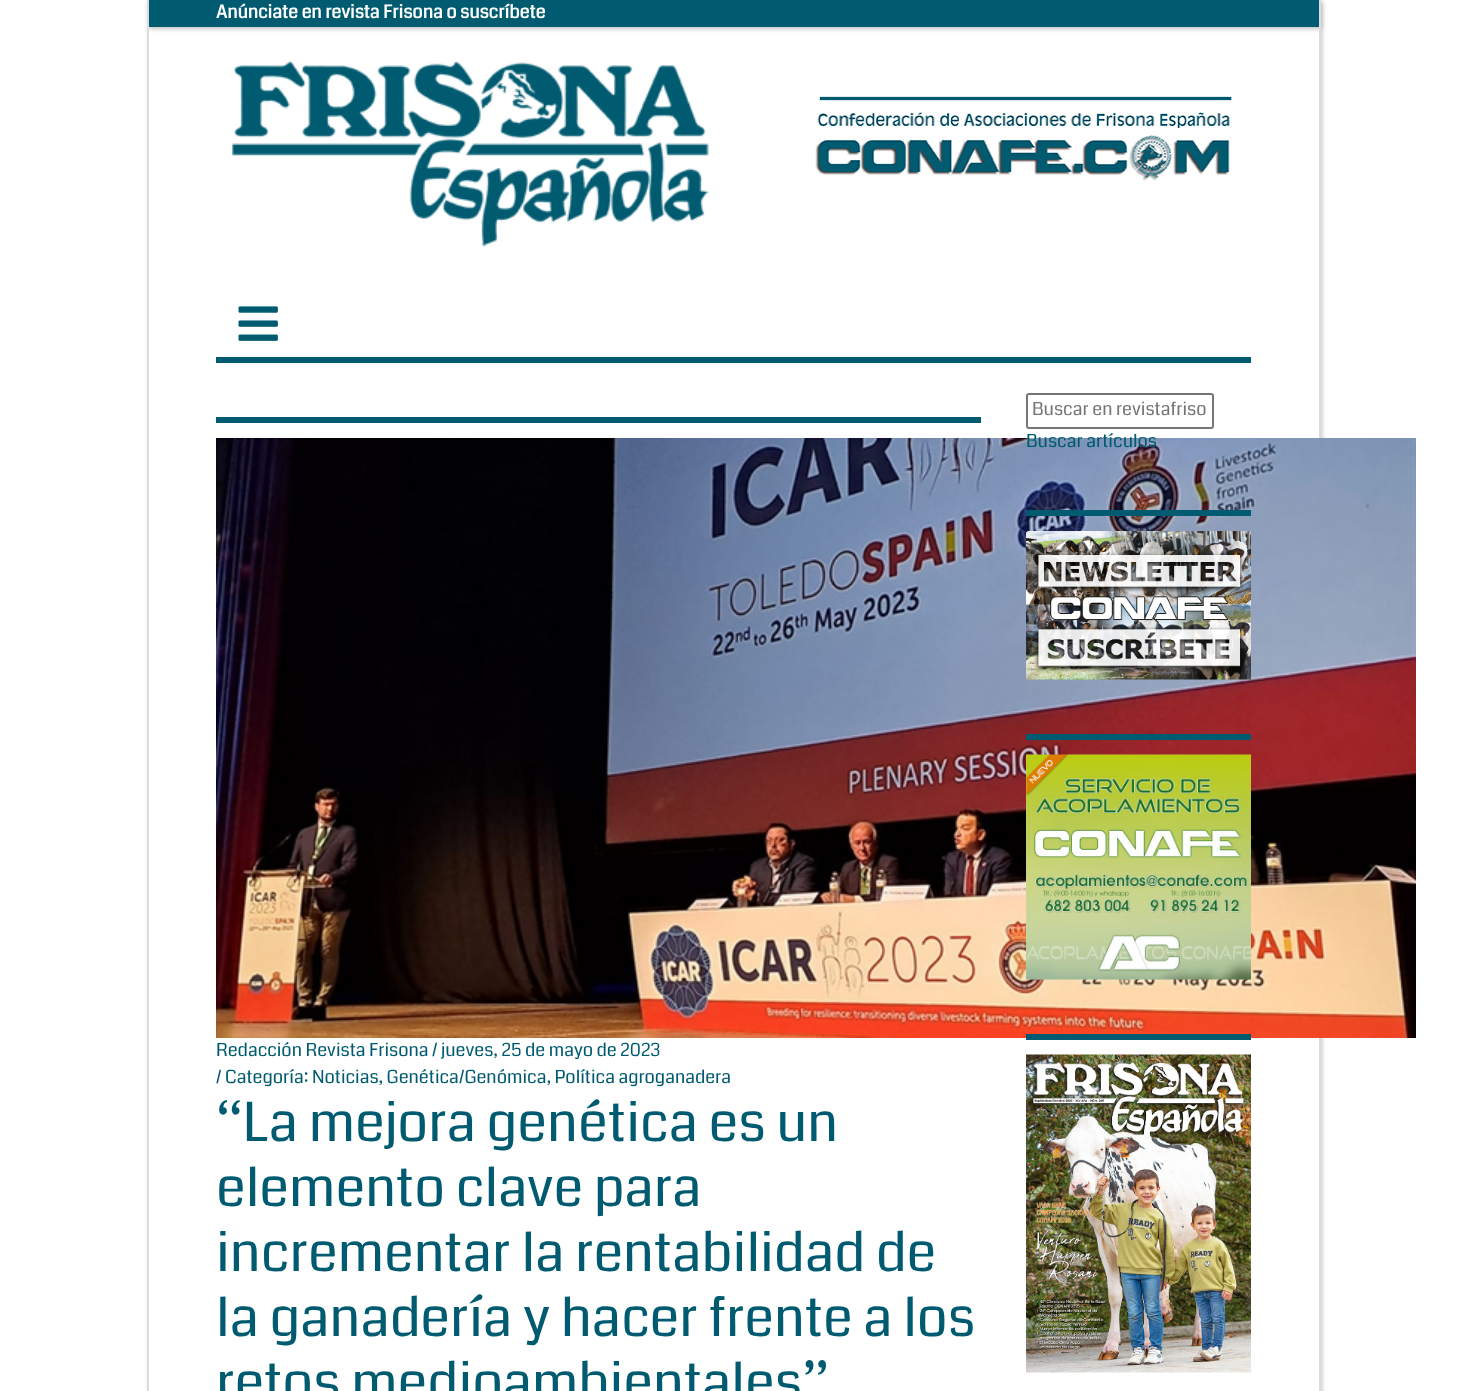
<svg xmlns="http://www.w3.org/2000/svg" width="1466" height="1391">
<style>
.a{font:bold 18px Coda;fill:#fff}
.b{font:18px Coda;fill:#757575}
.c{font:18px Coda;fill:#005b70}
.d{font:54px Coda;fill:#005b70}
</style>
<defs>
<clipPath id="clip1"><path d="M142 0h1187v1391h-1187zm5 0h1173v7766h-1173z" clip-rule="evenodd"/></clipPath>
</defs>
<rect width="100%" height="100%" fill="#fff"/>
<path fill="#c2c2c2" filter="blur(2px)" d="M149 2h1173v27H149z"/>
<path fill="#005b70" d="M149 0h1170v27H149z"/>
<g clip-path="url(#clip1)">
<path fill="#c2c2c2" filter="blur(2px)" d="M149 2h1173v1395H149z"/>
</g>
<path fill="#ddd" d="M1319 0h2v1391H1319z"/>
<path fill="#ddd" d="M147 0h2v1391H147z"/>
<path fill="#005b70" d="M216 357h1035v6H216z"/>
<image href="1.png" x="232" y="60" width="477" height="187"/>
<image href="2.png" x="815" y="96" width="419" height="85"/>
<image href="3.png" x="238" y="306" width="40" height="35"/>
<rect fill="none" stroke="#767676" stroke-width="2" x="1027" y="394" width="186" height="34" rx="2"/>
<image href="7.png" x="216" y="438" width="1200" height="600"/>
<path fill="#005b70" d="M1026 510h225v6H1026z"/>
<image href="4.png" x="1026" y="531" width="225" height="149"/>
<path fill="#005b70" d="M1026 734h225v6H1026z"/>
<image href="5.png" x="1026" y="754" width="225" height="226"/>
<path fill="#005b70" d="M1026 1034h225v6H1026z"/>
<image href="6.png" x="1026" y="1054" width="225" height="319"/>
<path fill="#005b70" d="M216 417h765v6H216z"/>
<text class="a" x="216" y="18">Anúnciate en revista Frisona o suscríbete</text>
<text class="b" x="1032" y="415">Buscar en revistafriso</text>
<text class="c" x="1026" y="447">Buscar artículos</text>
<text class="c" x="216" y="1056">Redacción Revista Frisona / jueves, 25 de mayo de 2023</text>
<text class="c" x="216" y="1083">/ Categoría: Noticias, Genética/Genómica, Política agroganadera</text>
<text class="d" x="216" y="1141">“La mejora genética es un</text>
<text class="d" x="216" y="1206">elemento clave para</text>
<text class="d" x="216" y="1271">incrementar la rentabilidad de</text>
<text class="d" x="216" y="1336">la ganadería y hacer frente a los</text>
<text class="d" x="216" y="1401">retos medioambientales”</text>
</svg>
